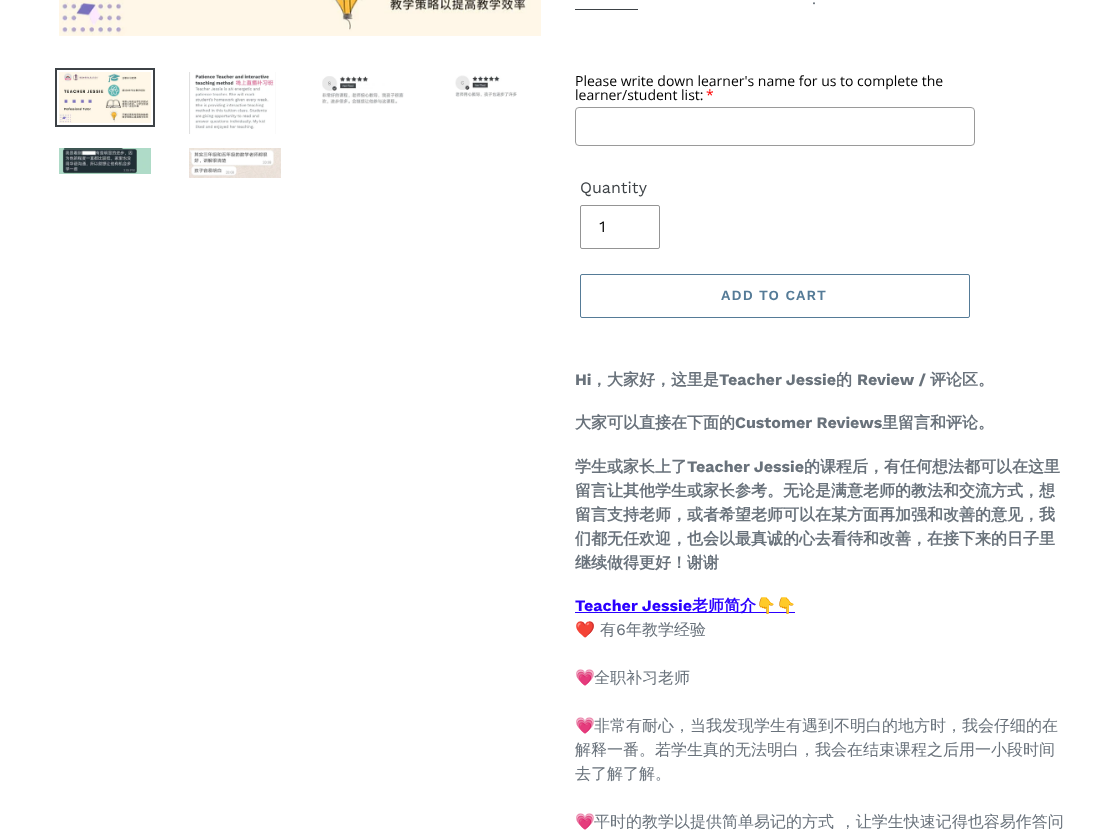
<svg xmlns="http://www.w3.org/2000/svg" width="1119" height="837">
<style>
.a{font:15px Work Sans;fill:#69727b}
.b{font:14px Open Sans;fill:#000}
.c{font:14px Open Sans;fill:#f00}
.d{font:16px Work Sans;fill:#3d4246}
.e{font:16px Work Sans;fill:#000}
.f{font:600 14px Work Sans;letter-spacing:1.1px;fill:#557b97}
.g{font:bold 16px Work Sans;fill:#69727b}
.h{font:bold 16px WenQuanYi Zen Hei;fill:#69727b}
.i{font:bold 16px Work Sans;fill:#2b00ff}
.j{font:bold 16px WenQuanYi Zen Hei;fill:#2b00ff}
.k{font:16px Noto Color Emoji;fill:#2b00ff}
.l{font:16px Noto Color Emoji;fill:#69727b}
.m{font:500 16px WenQuanYi Zen Hei;fill:#69727b}
.n{font:16px Work Sans;fill:#69727b}
</style>
<rect width="100%" height="100%" fill="#fff"/>
<image href="1.png" x="59" y="0" width="482" height="36"/>
<path fill="none" stroke="#3d4246" stroke-width="2" d="M56 69h98v57H56z"/>
<image href="2.png" x="59" y="72" width="92" height="51"/>
<image href="3.png" x="189" y="72" width="87" height="62"/>
<image href="4.png" x="322" y="76" width="82" height="28"/>
<image href="5.png" x="455" y="75" width="62" height="22"/>
<image href="6.png" x="59" y="148" width="92" height="26"/>
<image href="7.png" x="189" y="148" width="92" height="30"/>
<path fill="#3d4246" d="M575 9h63v1H575z"/>
<rect fill="none" stroke="#9a9a9a" x="575.5" y="107.5" width="399" height="38" rx="3.5"/>
<rect fill="none" stroke="#949494" x="580.5" y="205.5" width="79" height="43" rx="1.5"/>
<rect fill="none" stroke="#557b97" x="580.5" y="274.5" width="389" height="43" rx="1.5"/>
<path fill="#2b00ff" d="M575 612h220v1H575z"/>
<text class="a" x="812" y="4">.</text>
<text class="b" x="575" y="86">Please write down learner's name for us to complete the</text>
<text class="b" x="575" y="100">learner/student list:</text>
<text class="c" x="706" y="100">*</text>
<text class="d" x="580" y="193">Quantity</text>
<text class="e" x="599" y="232">1</text>
<text class="f" x="721" y="300">ADD TO CART</text>
<text class="g" x="575" y="385">Hi</text>
<text class="h" x="591" y="385">，大家好，这里是</text>
<text class="g" x="719" y="385">Teacher Jessie</text>
<text class="h" x="836" y="385">的</text>
<text class="g" x="857" y="385">Review /</text>
<text class="h" x="930" y="385">评论区。</text>
<text class="h" x="575" y="428">大家可以直接在下面的</text>
<text class="g" x="735" y="428">Customer Reviews</text>
<text class="h" x="882" y="428">里留言和评论。</text>
<text class="h" x="575" y="472">学生或家长上了</text>
<text class="g" x="687" y="472">Teacher Jessie</text>
<text class="h" x="804" y="472">的课程后，有任何想法都可以在这里</text>
<text class="h" x="575" y="496">留言让其他学生或家长参考。无论是满意老师的教法和交流方式，想</text>
<text class="h" x="575" y="520">留言支持老师，或者希望老师可以在某方面再加强和改善的意见，我</text>
<text class="h" x="575" y="544">们都无任欢迎，也会以最真诚的心去看待和改善，在接下来的日子里</text>
<text class="h" x="575" y="568">继续做得更好！谢谢</text>
<text class="i" x="575" y="611">Teacher Jessie</text>
<text class="j" x="692" y="611">老师简介</text>
<text class="k" x="756" y="611">👇👇</text>
<text class="l" x="575" y="635">❤️</text>
<text class="m" x="600" y="635">有</text>
<text class="n" x="616" y="635">6</text>
<text class="m" x="626" y="635">年教学经验</text>
<text class="l" x="575" y="683">💗</text>
<text class="m" x="594" y="683">全职补习老师</text>
<text class="l" x="575" y="731">💗</text>
<text class="m" x="594" y="731">非常有耐心，当我发现学生有遇到不明白的地方时，我会仔细的在</text>
<text class="m" x="575" y="755">解释一番。若学生真的无法明白，我会在结束课程之后用一小段时间</text>
<text class="m" x="575" y="779">去了解了解。</text>
<text class="l" x="575" y="827">💗</text>
<text class="m" x="594" y="827" word-spacing="1">平时的教学以提供简单易记的方式 ，让学生快速记得也容易作答问</text>
</svg>
